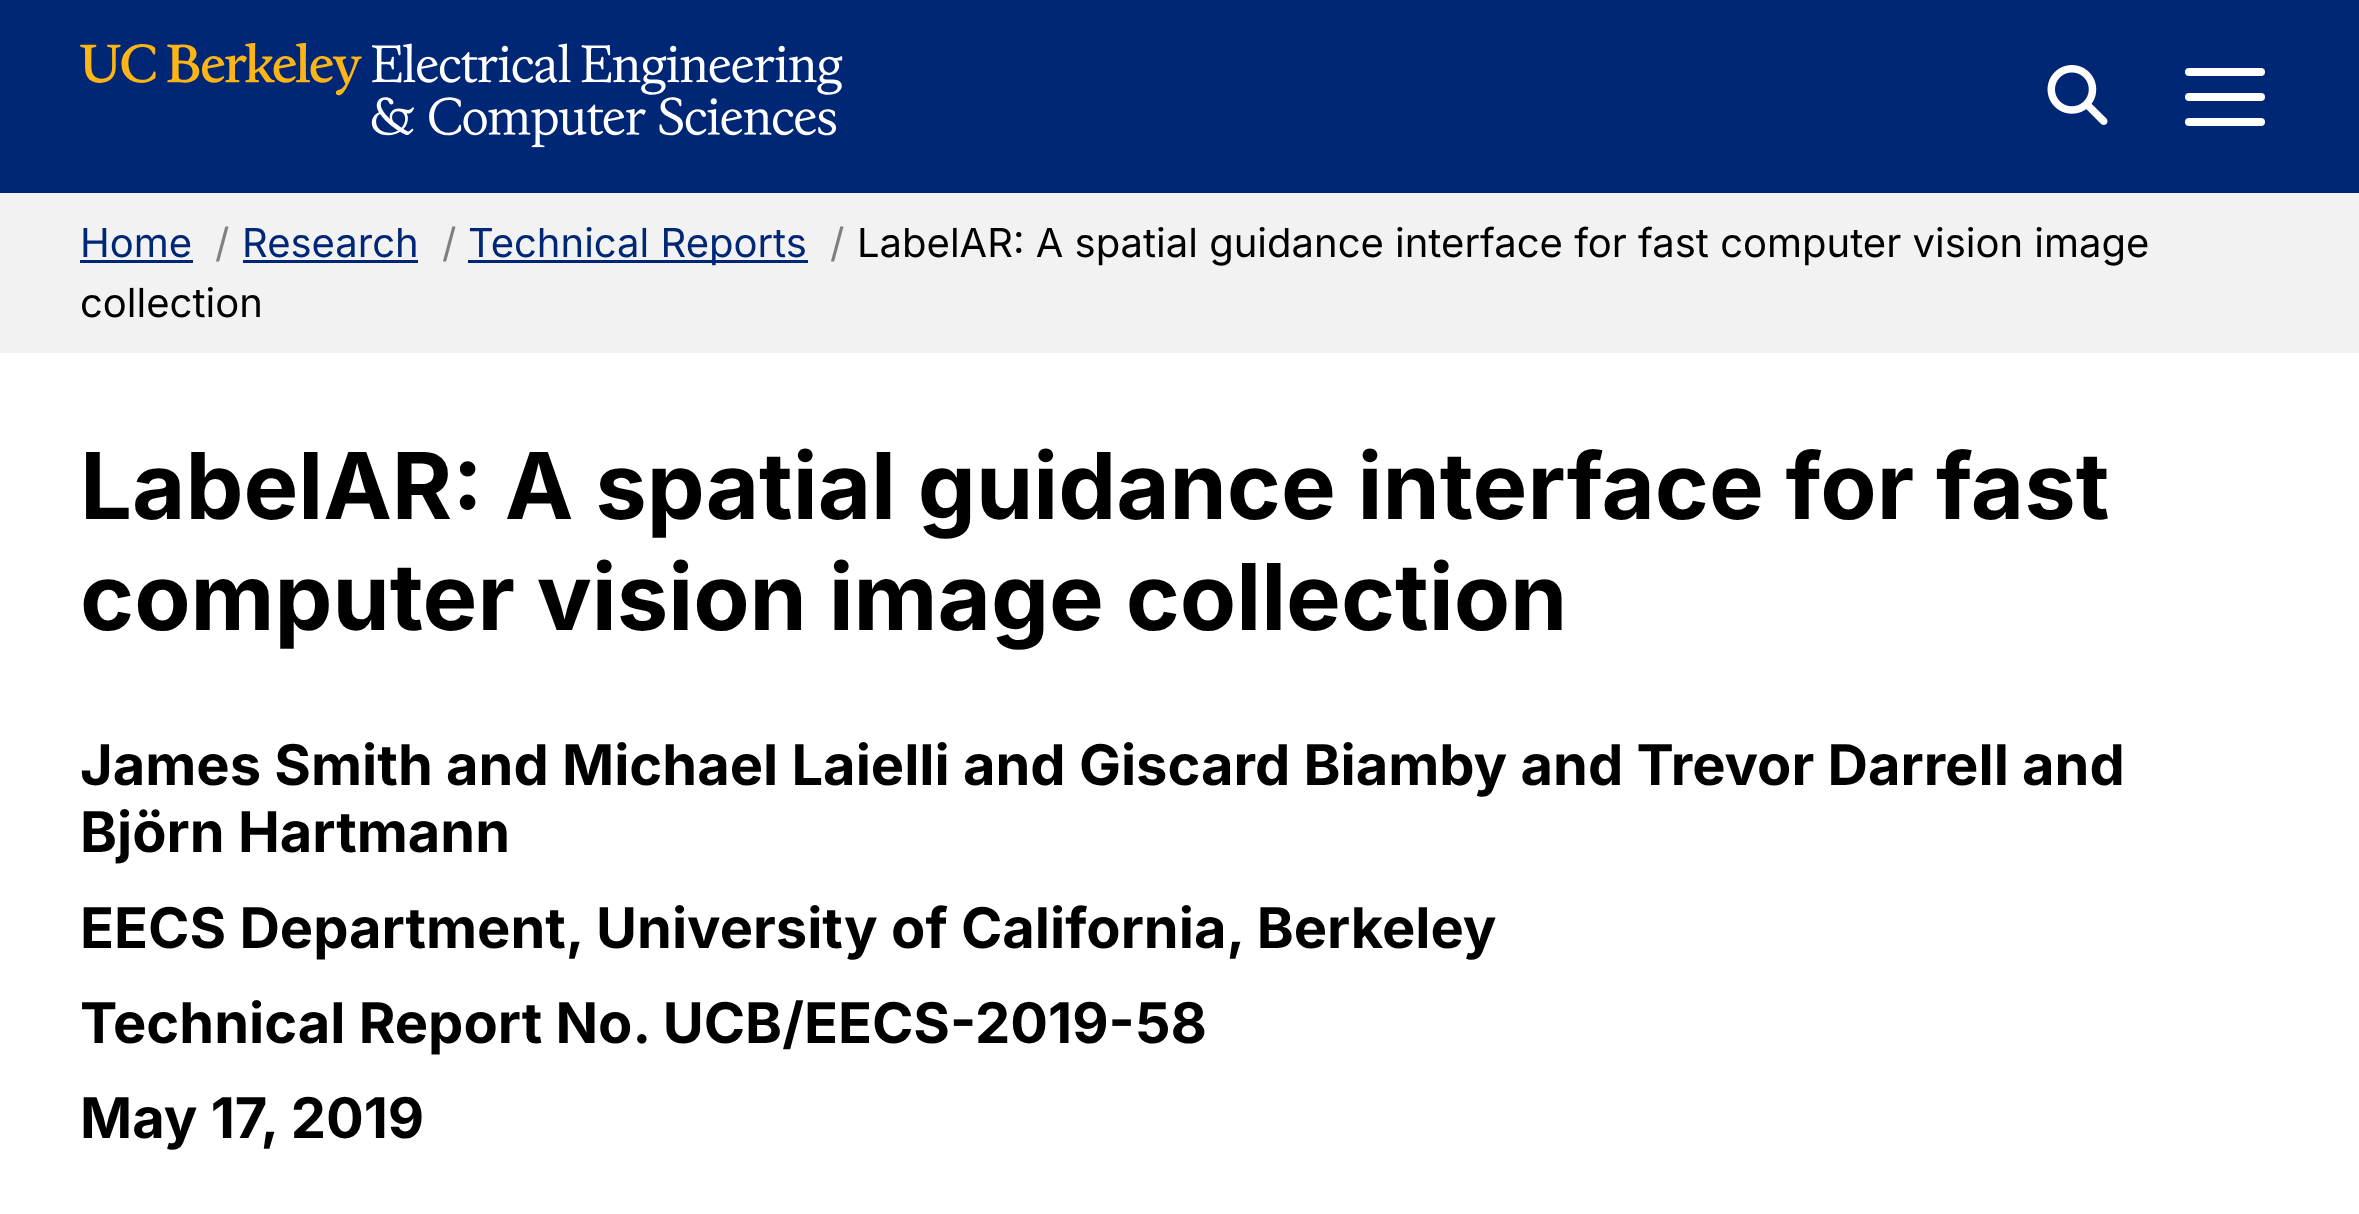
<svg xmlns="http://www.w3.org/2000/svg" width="2359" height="1214">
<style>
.a{font:40px Inter;fill:#002676}
.b{font:40px Inter;fill:#808080}
.c{font:40px Inter;fill:#000}
.d{font:bold 92px Inter;fill:#000}
.e{font:bold 56px Inter;fill:#000}
</style>
<rect width="100%" height="100%" fill="#fff"/>
<path fill="#002676" d="M0 0h2359v193H0z"/>
<image href="1.png" x="80" y="43" width="763" height="105"/>
<image href="2.png" x="2047" y="65" width="61" height="60"/>
<rect fill="#fff" x="2185" y="68" width="80" height="8" rx="4"/>
<rect fill="#fff" x="2185" y="93" width="80" height="8" rx="4"/>
<rect fill="#fff" x="2185" y="118" width="80" height="8" rx="4"/>
<path fill="#f2f2f2" d="M0 193h2359v160H0z"/>
<path fill="#002676" d="M80 260h113v3H80z"/>
<path fill="#002676" d="M243 260h175v3H243z"/>
<path fill="#002676" d="M468 260h340v3H468z"/>
<text class="a" x="80" y="257">Home</text>
<text class="b" x="215" y="257">/</text>
<text class="a" x="242" y="257">Research</text>
<text class="b" x="442" y="257">/</text>
<text class="a" x="468" y="257">Technical Reports</text>
<text class="b" x="830" y="257">/</text>
<text class="c" x="857" y="257">LabelAR: A spatial guidance interface for fast computer vision image</text>
<text class="c" x="80" y="317">collection</text>
<text class="d" x="80" y="519">LabelAR: A spatial guidance interface for fast</text>
<text class="d" x="80" y="630">computer vision image collection</text>
<text class="e" x="80" y="785">James Smith and Michael Laielli and Giscard Biamby and Trevor Darrell and</text>
<text class="e" x="80" y="852">Björn Hartmann</text>
<text class="e" x="80" y="948">EECS Department, University of California, Berkeley</text>
<text class="e" x="80" y="1043">Technical Report No. UCB/EECS-2019-58</text>
<text class="e" x="80" y="1138">May 17, 2019</text>
</svg>
